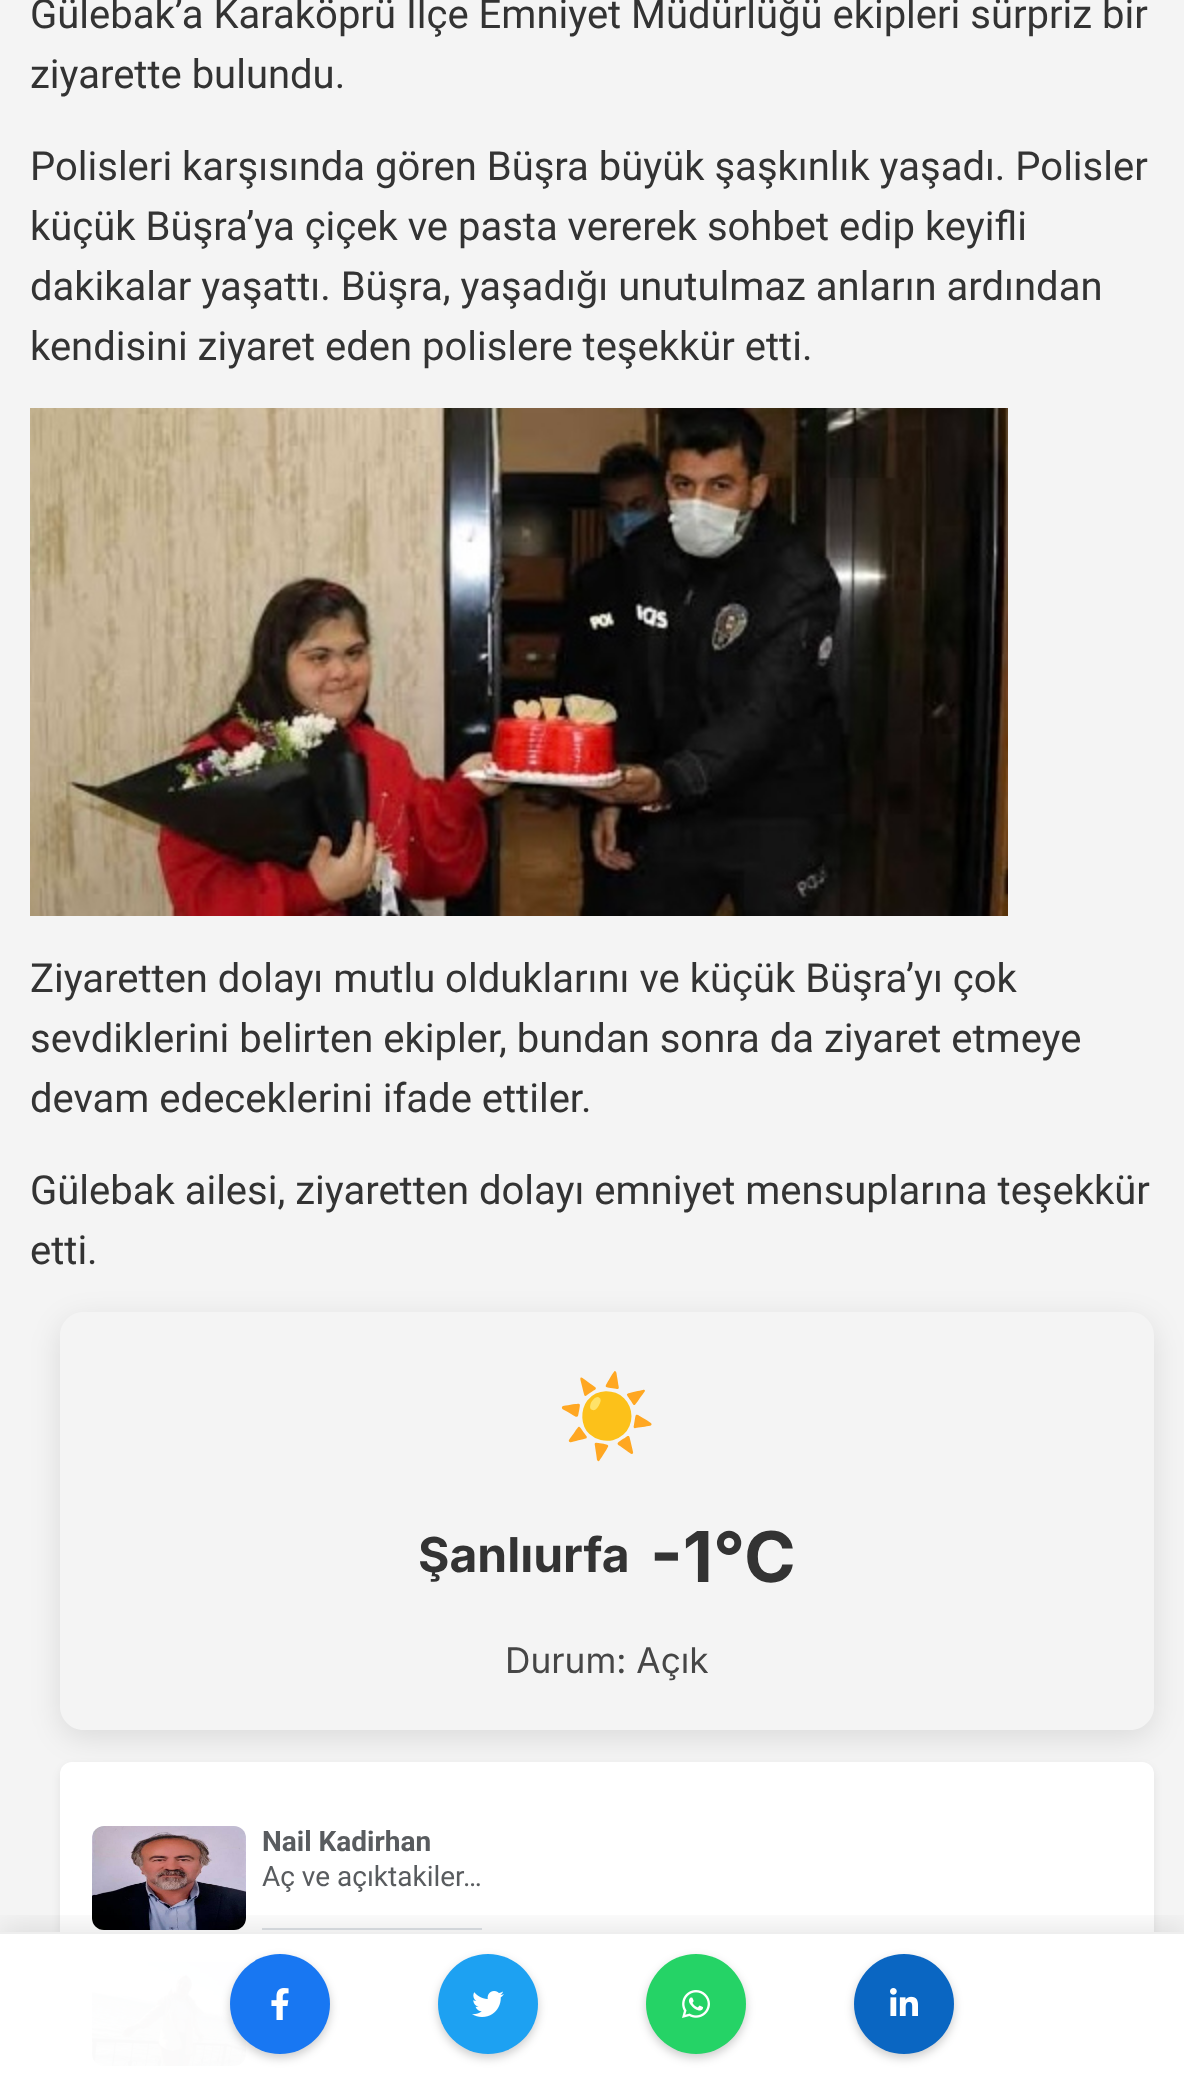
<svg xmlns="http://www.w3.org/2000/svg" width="1184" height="2074">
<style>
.a{font:40px Roboto;fill:#333}
.b{font:80px Noto Color Emoji;fill:#333}
.c{font:bold 48px Inter;fill:#333}
.d{font:bold 70px Inter;fill:#333}
.e{font:35.25px Inter;fill:#464646}
.f{font:bold 28px Roboto;fill:#595c5f}
.g{font:28px Roboto;fill:#595c5f}
</style>
<defs>
<clipPath id="clip1"><path d="M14 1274h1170v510h-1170zm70 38h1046c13.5 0 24 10.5 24 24v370c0 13.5-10.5 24-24 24h-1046c-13.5 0-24-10.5-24-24v-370c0-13.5 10.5-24 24-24z" clip-rule="evenodd"/></clipPath>
<clipPath id="clip2"><path d="M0 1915h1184v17H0z"/></clipPath>
</defs>
<rect width="100%" height="100%" fill="#f4f4f4"/>
<image href="1.png" x="30" y="408" width="978" height="508"/>
<g clip-path="url(#clip1)">
<rect fill="#0000001a" filter="blur(15px)" x="60" y="1320" width="1094" height="418" rx="24"/>
</g>
<rect fill="#00000012" filter="blur(4px)" x="60" y="1766" width="1094" height="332" rx="12"/>
<rect fill="#fff" x="60" y="1762" width="1094" height="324" rx="12"/>
<image href="6.png" x="92" y="1826" width="154" height="104"/>
<path fill="#dee2e6" d="M262 1928h220v2H262z"/>
<image href="7.png" x="92" y="1962" width="154" height="104"/>
<path fill="#dee2e6" d="M262 2064h206v2H262z"/>
<g clip-path="url(#clip2)">
<path fill="#0000001a" filter="blur(15px)" d="M0 1928h1184v142H0z"/>
</g>
<path fill="#fffffffa" d="M0 1934h1184v140H0z"/>
<path fill="#eee" d="M0 1932h1184v2H0z"/>
<rect fill="#00000033" filter="blur(5px)" x="230" y="1958" width="100" height="100" rx="50"/>
<circle fill="#1877f2" cx="280" cy="2004" r="50"/>
<image href="2.png" x="271" y="1988" width="18" height="32"/>
<rect fill="#00000033" filter="blur(5px)" x="438" y="1958" width="100" height="100" rx="50"/>
<circle fill="#1da1f2" cx="488" cy="2004" r="50"/>
<image href="3.png" x="472" y="1991" width="32" height="26"/>
<rect fill="#00000033" filter="blur(5px)" x="646" y="1958" width="100" height="100" rx="50"/>
<circle fill="#25d366" cx="696" cy="2004" r="50"/>
<image href="4.png" x="682" y="1990" width="28" height="28"/>
<rect fill="#00000033" filter="blur(5px)" x="854" y="1958" width="100" height="100" rx="50"/>
<circle fill="#0a66c2" cx="904" cy="2004" r="50"/>
<image href="5.png" x="890" y="1988" width="28" height="28"/>
<text class="a" x="30" y="28">Gülebak’a Karaköprü İlçe Emniyet Müdürlüğü ekipleri sürpriz bir</text>
<text class="a" x="30" y="88">ziyarette bulundu.</text>
<text class="a" x="30" y="180">Polisleri karşısında gören Büşra büyük şaşkınlık yaşadı. Polisler</text>
<text class="a" x="30" y="240">küçük Büşra’ya çiçek ve pasta vererek sohbet edip keyifli</text>
<text class="a" x="30" y="300">dakikalar yaşattı. Büşra, yaşadığı unutulmaz anların ardından</text>
<text class="a" x="30" y="360">kendisini ziyaret eden polislere teşekkür etti.</text>
<text class="a" x="30" y="992">Ziyaretten dolayı mutlu olduklarını ve küçük Büşra’yı çok</text>
<text class="a" x="30" y="1052">sevdiklerini belirten ekipler, bundan sonra da ziyaret etmeye</text>
<text class="a" x="30" y="1112">devam edeceklerini ifade ettiler.</text>
<text class="a" x="30" y="1204">Gülebak ailesi, ziyaretten dolayı emniyet mensuplarına teşekkür</text>
<text class="a" x="30" y="1264">etti.</text>
<text class="b" x="557" y="1444">☀️</text>
<text class="c" x="418" y="1572">Şanlıurfa</text>
<text class="d" x="650" y="1582">-1°C</text>
<text class="e" x="505" y="1673">Durum: Açık</text>
<text class="f" x="262" y="1851">Nail Kadirhan</text>
<text class="g" x="262" y="1886">Aç ve açıktakiler…</text>
</svg>
